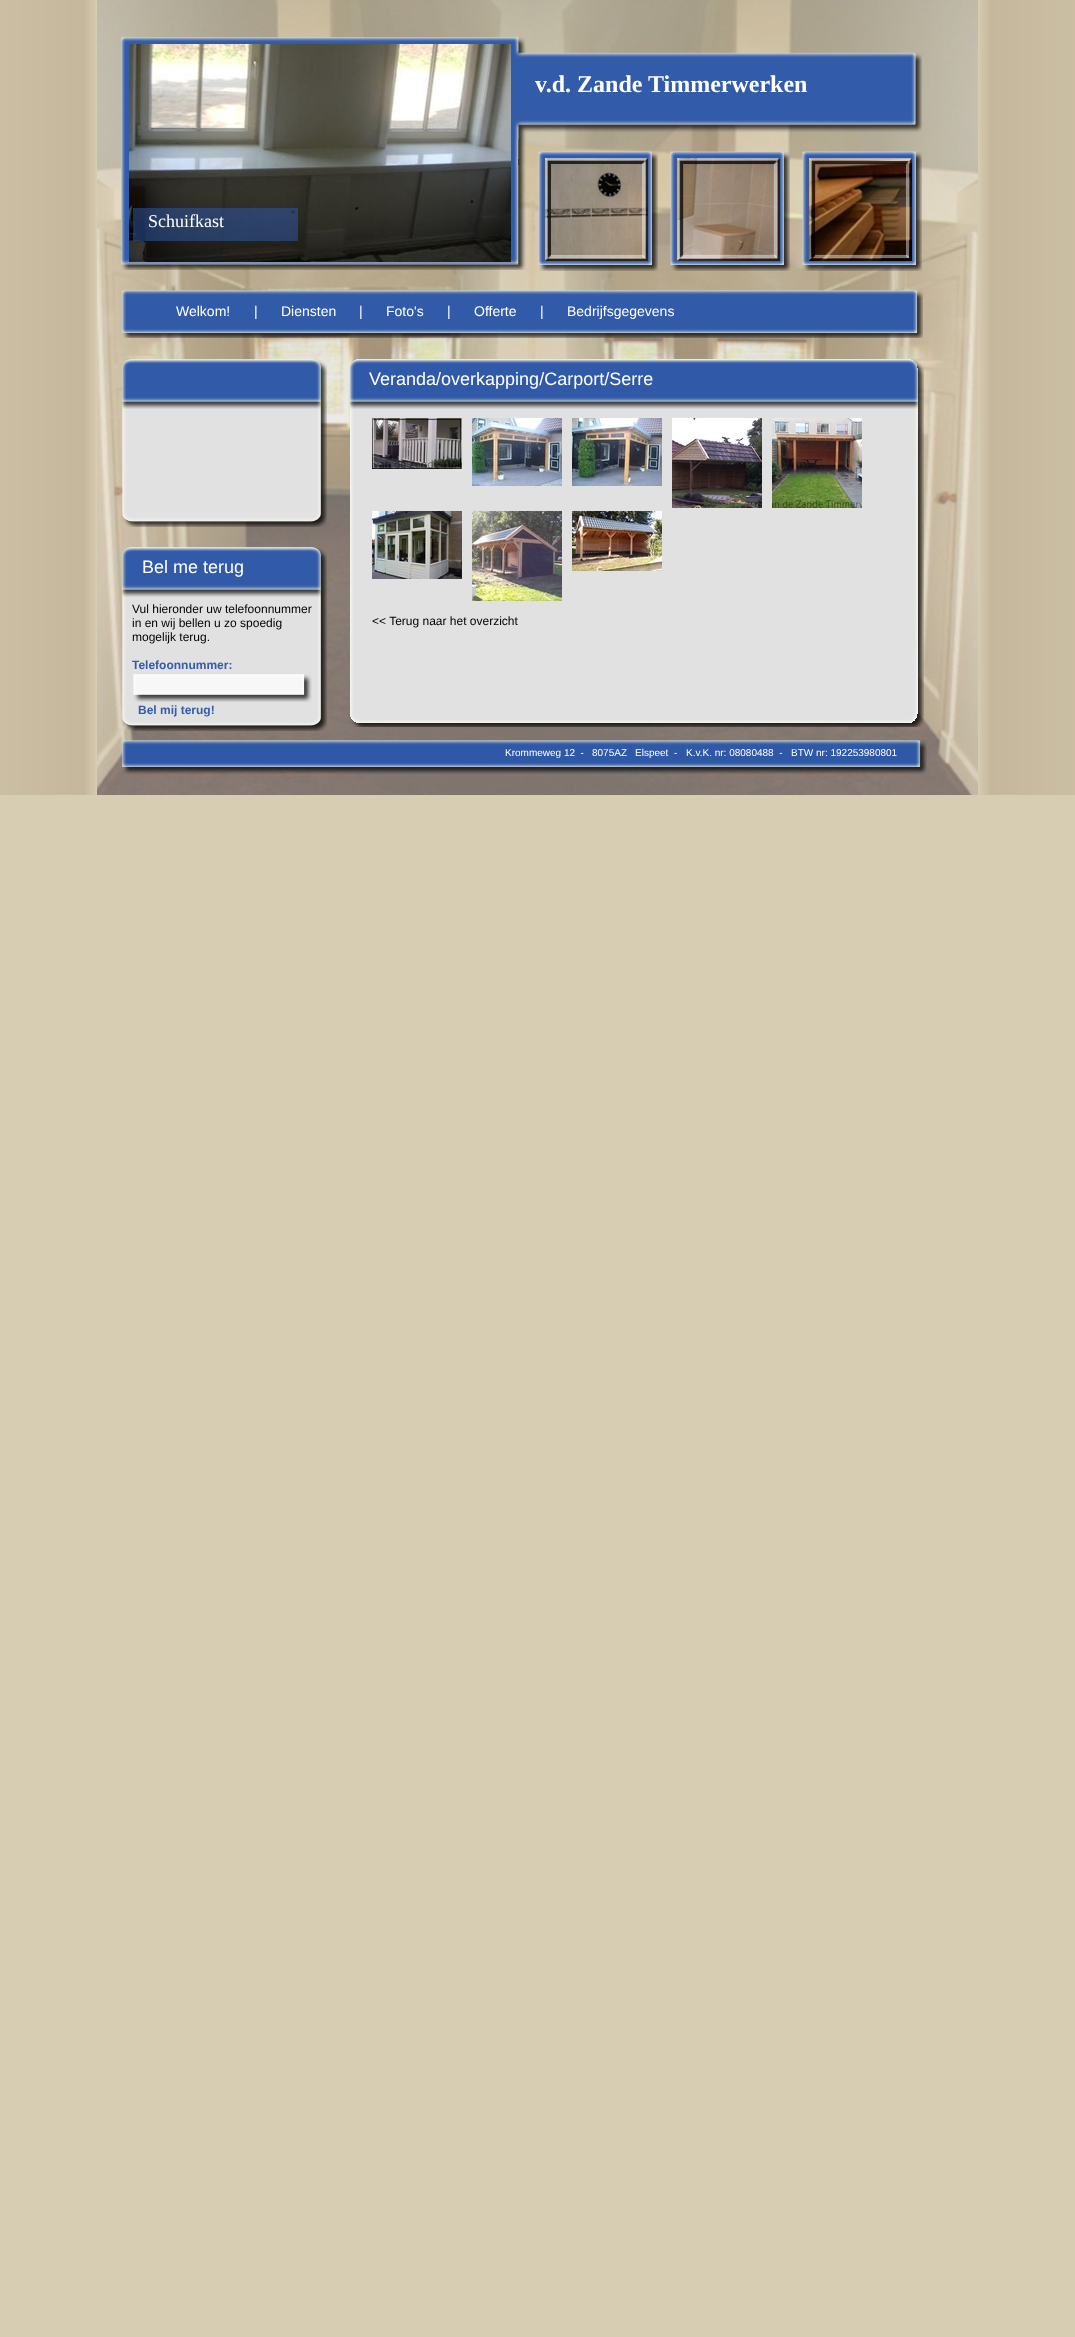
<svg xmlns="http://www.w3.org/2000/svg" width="1075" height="2337">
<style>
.a{font:bold 24px Liberation Serif;fill:#fff}
.b{font:18px Liberation Serif;fill:#fff}
.c{font:14px Liberation Sans;fill:#fff}
.d{font:18px Liberation Sans;fill:#fff}
.e{font:12px Liberation Sans;fill:#000}
.f{font:bold 12px Liberation Sans;fill:#335caa}
.g{font:10px Liberation Sans;fill:#fff}
</style>
<rect width="100%" height="100%" fill="#d7cdb2"/>
<image href="1.png" x="0" y="0" width="96" height="795"/>
<image href="2.png" x="97" y="0" width="881" height="795"/>
<image href="3.png" x="121" y="36" width="801" height="234"/>
<image href="4.png" x="129" y="44" width="382" height="218"/>
<path fill="#3058a785" d="M133 208h165v33H133z"/>
<image href="5.png" x="538" y="151" width="120" height="120"/>
<image href="6.png" x="544" y="157" width="104" height="104"/>
<image href="7.png" x="670" y="151" width="120" height="120"/>
<image href="8.png" x="676" y="157" width="104" height="104"/>
<image href="9.png" x="802" y="151" width="120" height="120"/>
<image href="10.png" x="808" y="157" width="104" height="104"/>
<image href="11.png" x="122" y="290" width="801" height="48"/>
<image href="12.png" x="122" y="359" width="205" height="50"/>
<image href="13.png" x="122" y="409" width="205" height="105"/>
<image href="14.png" x="122" y="514" width="205" height="13"/>
<image href="15.png" x="350" y="359" width="574" height="50"/>
<image href="16.png" x="350" y="409" width="574" height="305"/>
<image href="17.png" x="372" y="418" width="90" height="51"/>
<image href="18.png" x="472" y="418" width="90" height="68"/>
<image href="19.png" x="572" y="418" width="90" height="68"/>
<image href="20.png" x="672" y="418" width="90" height="90"/>
<image href="21.png" x="772" y="418" width="90" height="90"/>
<image href="22.png" x="372" y="511" width="90" height="68"/>
<image href="23.png" x="472" y="511" width="90" height="90"/>
<image href="24.png" x="572" y="511" width="90" height="60"/>
<image href="25.png" x="350" y="714" width="574" height="13"/>
<image href="26.png" x="122" y="547" width="205" height="50"/>
<image href="27.png" x="122" y="597" width="205" height="121"/>
<image href="28.png" x="133" y="674" width="179" height="28"/>
<image href="29.png" x="122" y="718" width="205" height="13"/>
<image href="30.png" x="122" y="740" width="805" height="34"/>
<image href="31.png" x="979" y="0" width="96" height="795"/>
<text class="a" x="535" y="92">v.d. Zande Timmerwerken</text>
<text class="b" x="148" y="227">Schuifkast</text>
<text class="c" x="176" y="316">Welkom!</text>
<text class="c" x="254" y="316">|</text>
<text class="c" x="281" y="316">Diensten</text>
<text class="c" x="359" y="316">|</text>
<text class="c" x="386" y="316">Foto's</text>
<text class="c" x="447" y="316">|</text>
<text class="c" x="474" y="316">Offerte</text>
<text class="c" x="540" y="316">|</text>
<text class="c" x="567" y="316">Bedrijfsgegevens</text>
<text class="d" x="369" y="385">Veranda/overkapping/Carport/Serre</text>
<text class="e" x="372" y="625">&lt;&lt; Terug naar het overzicht</text>
<text class="d" x="142" y="573">Bel me terug</text>
<text class="e" x="132" y="613">Vul hieronder uw telefoonnummer</text>
<text class="e" x="132" y="627">in en wij bellen u zo spoedig</text>
<text class="e" x="132" y="641">mogelijk terug.</text>
<text class="f" x="132" y="669">Telefoonnummer:</text>
<text class="f" x="138" y="714">Bel mij terug!</text>
<text class="g" xml:space="preserve" x="505" y="756">Krommeweg 12  -</text>
<text class="g" x="592" y="756">8075AZ</text>
<text class="g" x="635" y="756">Elspeet</text>
<text class="g" x="674" y="756">-</text>
<text class="g" xml:space="preserve" x="686" y="756">K.v.K. nr: 08080488  -</text>
<text class="g" x="791" y="756">BTW nr: 192253980801</text>
</svg>
